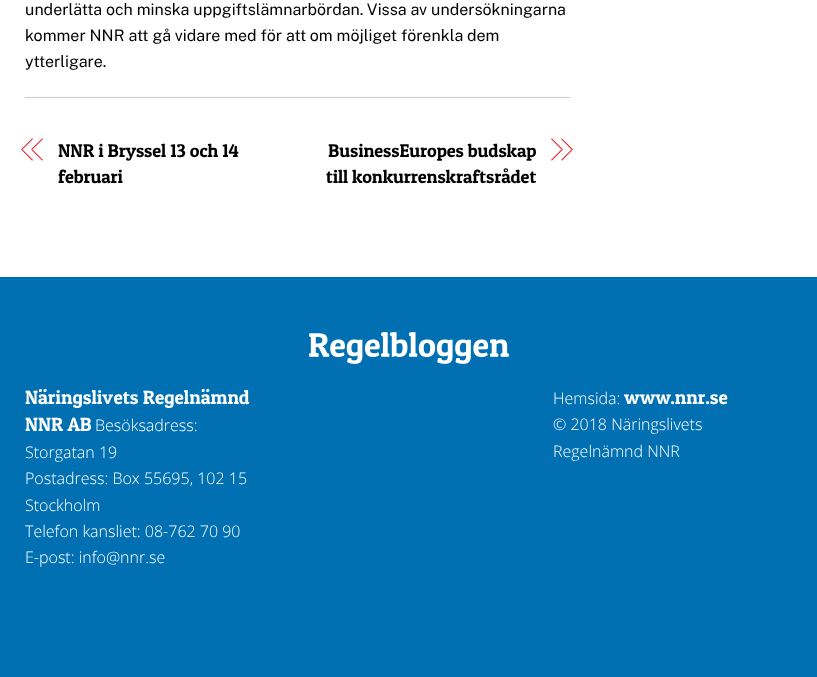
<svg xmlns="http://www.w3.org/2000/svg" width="817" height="677">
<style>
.a{font:16px Public Sans;fill:#000}
.b{font:18.4px Patua One;letter-spacing:-0.1px;fill:#000}
.c{font:19.25px Patua One;fill:#fff}
.d{font:300 16px Open Sans;fill:#fff}
</style>
<rect width="100%" height="100%" fill="#fff"/>
<path fill="#ccc" d="M25 97h545v1H25z"/>
<path fill="#ed1e24" d="M21 149.5l11.5-11.5v1.5l-10 10z"/>
<path fill="#ed1e24" d="M32.5 161l-11.5-11.5h1.5l10 10z"/>
<path fill="#ed1e24" d="M31 149.5l11.5-11.5v1.5l-10 10z"/>
<path fill="#ed1e24" d="M42.5 161l-11.5-11.5h1.5l10 10z"/>
<path fill="#ed1e24" d="M561.5 138l11.5 11.5h-1.5l-10-10z"/>
<path fill="#ed1e24" d="M573 149.5l-11.5 11.5v-1.5l10-10z"/>
<path fill="#ed1e24" d="M551.5 138l11.5 11.5h-1.5l-10-10z"/>
<path fill="#ed1e24" d="M563 149.5l-11.5 11.5v-1.5l10-10z"/>
<path fill="#0070b3" d="M0 278h817v399H0z"/>
<path fill="#006aaa" d="M0 277h817v1H0z"/>
<image href="1.png" x="309" y="332" width="200" height="32"/>
<text class="a" x="25" y="15">underlätta och minska uppgiftslämnarbördan. Vissa av undersökningarna</text>
<text class="a" x="25" y="41">kommer NNR att gå vidare med för att om möjliget förenkla dem</text>
<text class="a" x="25" y="67">ytterligare.</text>
<text class="b" x="58" y="157">NNR i Bryssel 13 och 14</text>
<text class="b" x="58" y="183">februari</text>
<text class="b" x="328" y="157">BusinessEuropes budskap</text>
<text class="b" x="326" y="183">till konkurrenskraftsrådet</text>
<text class="c" x="25" y="404">Näringslivets Regelnämnd</text>
<text class="c" x="25" y="431">NNR AB</text>
<text class="d" x="95" y="431">Besöksadress:</text>
<text class="d" x="25" y="458">Storgatan 19</text>
<text class="d" x="25" y="484">Postadress: Box 55695, 102 15</text>
<text class="d" x="25" y="511">Stockholm</text>
<text class="d" x="25" y="537">Telefon kansliet: 08-762 70 90</text>
<text class="d" x="25" y="563">E-post: info@nnr.se</text>
<text class="d" x="553" y="404">Hemsida:</text>
<text class="c" x="624" y="404">www.nnr.se</text>
<text class="d" x="553" y="430">© 2018 Näringslivets</text>
<text class="d" x="553" y="457">Regelnämnd NNR</text>
</svg>
